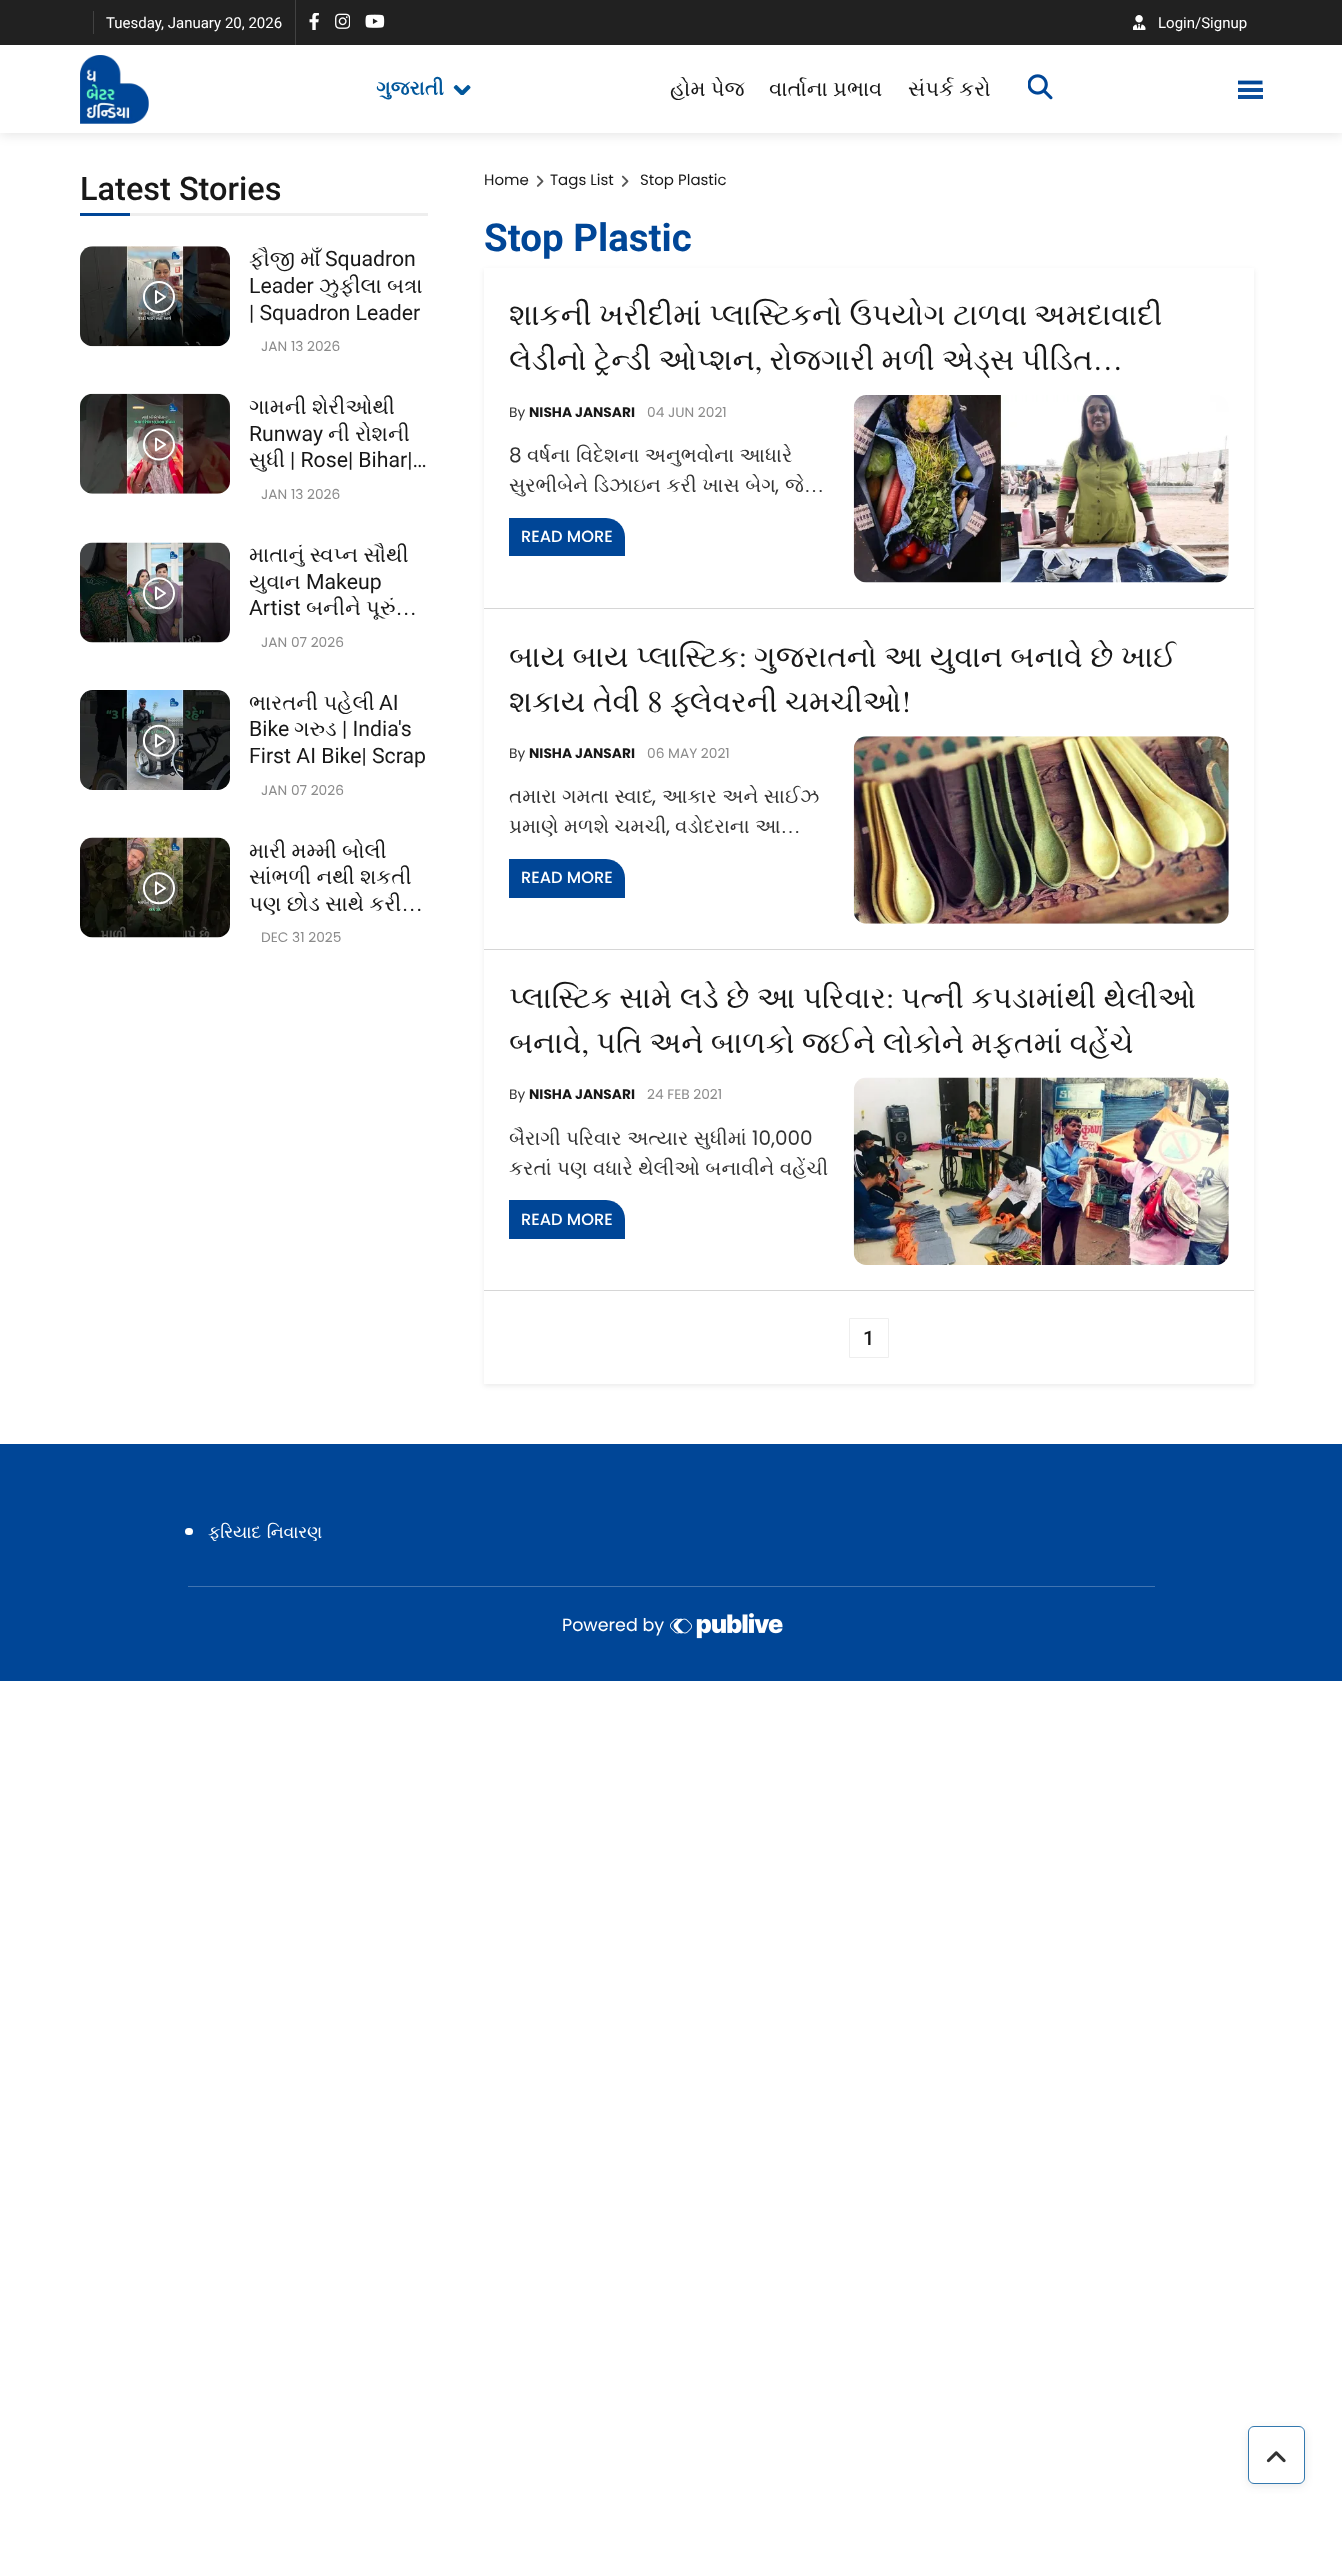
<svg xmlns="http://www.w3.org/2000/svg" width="1342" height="2558">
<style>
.a{font:15px Roboto;fill:#fff}
.b{font:bold 20px FreeSerif;fill:#01579b}
.c{font:21.25px FreeSerif;fill:#181818}
.d{font:500 32.5px Roboto;fill:#181818}
.e{font:21.25px Roboto;fill:#181818}
.f{font:13.75px Poppins;fill:#8b8b8b}
.g{font:15px Poppins;fill:#181818}
.h{font:bold 38.5px Roboto;fill:#004697}
.i{font:30px FreeSerif;fill:#181818}
.j{font:13.75px Poppins;fill:#333}
.k{font:bold 13.75px Poppins;fill:#181818}
.l{font:20px Poppins;fill:#333}
.m{font:20px FreeSerif;fill:#333}
.n{font:500 16.25px Poppins;fill:#fff}
.o{font:500 20px Roboto;fill:#181818}
.p{font:17.5px FreeSerif;letter-spacing:-0.3px;fill:#fff}
.q{font:17.5px Poppins;fill:#fff}
</style>
<defs>
<clipPath id="clip1"><path d="M1238 78h25v25H1238z"/></clipPath>
<clipPath id="clip2"><path d="M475 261h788v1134h-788zm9 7h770v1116h-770z" clip-rule="evenodd"/></clipPath>
<clipPath id="clip3"><path d="M249 246h179v80H249z"/></clipPath>
<clipPath id="clip4"><path d="M249 394h179v80H249z"/></clipPath>
<clipPath id="clip5"><path d="M249 543h179v78H249z"/></clipPath>
<clipPath id="clip6"><path d="M249 838h179v80H249z"/></clipPath>
<clipPath id="clip7"><path d="M509 293h720v90H509z"/></clipPath>
<clipPath id="clip8"><path d="M509 441h320v60H509z"/></clipPath>
<clipPath id="clip9"><path d="M509 783h320v60H509z"/></clipPath>
<clipPath id="clip10"><path d="M509 1124h320v60H509z"/></clipPath>
</defs>
<rect width="100%" height="100%" fill="#fff"/>
<path fill="#0000001a" filter="blur(6px)" d="M0 3h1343v132H0z"/>
<path fill="#fff" d="M0 45h1342v88H0z"/>
<path fill="#212121" d="M0 0h1342v45H0z"/>
<path fill="#424242" d="M93 11h1v23H93z"/>
<path fill="#424242" d="M295 0h1v45H295z"/>
<image href="1.png" x="309" y="13" width="10" height="17"/>
<image href="2.png" x="335" y="13" width="15" height="16"/>
<image href="3.png" x="365" y="14" width="20" height="14"/>
<image href="4.png" x="1133" y="15" width="13" height="15"/>
<image href="5.png" x="80" y="55" width="69" height="69"/>
<image href="6.png" x="453" y="85" width="18" height="10"/>
<image href="7.png" x="1028" y="74" width="25" height="26"/>
<g clip-path="url(#clip1)">
<path fill="none" stroke="#004697" stroke-width="3.8" d="M1237.5 82.5h25"/>
</g>
<path fill="#0d4f9c" d="M1238 88h25v4H1238z"/>
<path fill="#0d4f9c" d="M1238 95h25v4H1238z"/>
<path fill="#004697" d="M80 213h50v3H80z"/>
<path fill="#eee" d="M130 213h298v3H130z"/>
<image href="8.png" x="80" y="246" width="150" height="101"/>
<circle fill="#8a8a8a80" cx="158" cy="298" r="20"/>
<image href="9.png" x="143" y="281" width="32" height="32"/>
<image href="10.png" x="80" y="393" width="150" height="101"/>
<circle fill="#8a8a8a80" cx="158" cy="445" r="20"/>
<image href="11.png" x="143" y="428" width="32" height="33"/>
<image href="12.png" x="80" y="542" width="150" height="101"/>
<circle fill="#8a8a8a80" cx="158" cy="594" r="20"/>
<image href="13.png" x="143" y="577" width="32" height="33"/>
<image href="14.png" x="80" y="690" width="150" height="100"/>
<circle fill="#8a8a8a80" cx="158" cy="741" r="20"/>
<image href="15.png" x="142" y="724" width="33" height="33"/>
<image href="16.png" x="80" y="837" width="150" height="101"/>
<circle fill="#8a8a8a80" cx="158" cy="889" r="20"/>
<image href="17.png" x="143" y="872" width="32" height="33"/>
<image href="18.png" x="536" y="175" width="8" height="12"/>
<image href="18.png" x="621" y="175" width="8" height="12"/>
<g clip-path="url(#clip2)">
<path fill="#00000014" filter="blur(2.5px)" d="M484 270h770v1116H484z"/>
</g>
<path fill="#00000029" d="M484 608h770v1H484z"/>
<image href="19.png" x="853" y="395" width="376" height="188"/>
<path fill="#004697" d="M509 518h97c10.5 0 19 8.5 19 19v19h-116z"/>
<path fill="#00000029" d="M484 949h770v1H484z"/>
<image href="20.png" x="853" y="736" width="376" height="188"/>
<path fill="#004697" d="M509 859h97c10.5 0 19 8.5 19 19v20h-116z"/>
<path fill="#00000029" d="M484 1290h770v1H484z"/>
<image href="21.png" x="853" y="1077" width="376" height="188"/>
<path fill="#004697" d="M509 1200h97c10.5 0 19 8.5 19 19v20h-116z"/>
<path fill="none" stroke="#eee" d="M849.5 1318.5h39v39H849.5z"/>
<path fill="#004697" d="M0 1444h1342v237H0z"/>
<rect fill="#fff" x="185" y="1528" width="8" height="7" rx="3.5"/>
<path fill="#4074b1" d="M188 1586h967v1H188z"/>
<image href="22.png" x="670" y="1613" width="113" height="26"/>
<rect fill="#3333331a" filter="blur(4px)" x="1248" y="2429" width="57" height="57" rx="6"/>
<rect fill="#fff" stroke="#3479af" x="1248.5" y="2426.5" width="56" height="57" rx="5.5"/>
<image href="23.png" x="1266" y="2451" width="20" height="12"/>
<text class="a" x="106" y="28">Tuesday, January 20, 2026</text>
<text class="a" x="1158" y="28">Login/Signup</text>
<text class="b" x="376" y="95">ગુજરાતી</text>
<text class="c" x="670" y="96">હોમ પેજ</text>
<text class="c" x="769" y="96">વાર્તાના પ્રભાવ</text>
<text class="c" x="908" y="96">સંપર્ક કરો</text>
<text class="d" x="80" y="200">Latest Stories</text>
<g clip-path="url(#clip3)">
<text class="c" x="249" y="266">ફૌજી માઁ</text>
</g>
<text class="e" x="325" y="266">Squadron</text>
<text class="e" x="249" y="293">Leader</text>
<text class="c" x="319" y="293">ઝુફીલા બત્રા</text>
<text class="e" x="249" y="320">| Squadron Leader</text>
<text class="f" x="261" y="351">JAN 13 2026</text>
<text class="c" x="249" y="414">ગામની શેરીઓથી</text>
<text class="e" x="249" y="441">Runway</text>
<text class="c" x="328" y="441">ની રોશની</text>
<g clip-path="url(#clip4)">
<text class="c" x="249" y="467">સુધી</text>
</g>
<text class="e" x="290" y="467">| Rose| Bihar|…</text>
<text class="f" x="261" y="499">JAN 13 2026</text>
<text class="c" x="249" y="562">માતાનું સ્વપ્ન સૌથી</text>
<g clip-path="url(#clip5)">
<text class="c" x="249" y="589">યુવાન</text>
</g>
<text class="e" x="306" y="589">Makeup</text>
<text class="e" x="249" y="615">Artist</text>
<text class="c" x="306" y="615">બનીને પૂરું…</text>
<text class="f" x="261" y="647">JAN 07 2026</text>
<text class="c" x="249" y="710">ભારતની પહેલી</text>
<text class="e" x="379" y="710">AI</text>
<text class="e" x="249" y="736">Bike</text>
<text class="c" x="294" y="736">ગરુડ</text>
<text class="e" x="342" y="736">| India's</text>
<text class="e" x="249" y="763">First AI Bike| Scrap</text>
<text class="f" x="261" y="795">JAN 07 2026</text>
<text class="c" x="249" y="858">મારી મમ્મી બોલી</text>
<g clip-path="url(#clip6)">
<text class="c" x="249" y="884">સાંભળી નથી શકતી</text>
</g>
<text class="c" x="249" y="911">પણ છોડ સાથે કરી…</text>
<text class="f" x="261" y="942">DEC 31 2025</text>
<text class="g" x="484" y="185">Home</text>
<text class="g" x="550" y="185">Tags List</text>
<text class="g" x="640" y="185">Stop Plastic</text>
<text class="h" x="484" y="251">Stop Plastic</text>
<text class="i" x="509" y="325">શાકની ખરીદીમાં પ્લાસ્ટિકનો ઉપયોગ ટાળવા</text>
<text class="i" x="1034" y="325">અમદાવાદી</text>
<g clip-path="url(#clip7)">
<text class="i" x="509" y="370" word-spacing="-0.25">લેડીનો ટ્રેન્ડી ઓપ્શન, રોજગારી મળી એડ્સ પીડિત…</text>
</g>
<text class="j" x="509" y="417">By</text>
<text class="k" x="529" y="417">NISHA JANSARI</text>
<text class="f" x="647" y="417">04 JUN 2021</text>
<text class="l" x="509" y="462">8</text>
<text class="m" x="527" y="462" word-spacing="0.5">વર્ષના વિદેશના અનુભવોના આધારે</text>
<g clip-path="url(#clip8)">
<text class="m" x="509" y="492" word-spacing="0.5">સુરભીબેને ડિઝાઇન કરી ખાસ બેગ</text>
</g>
<text class="l" x="775" y="492">,</text>
<text class="m" x="785" y="492">જે…</text>
<text class="n" x="521" y="542">READ MORE</text>
<text class="i" x="509" y="667">બાય બાય પ્લાસ્ટિક: ગુજરાતનો આ યુવાન બનાવે છે ખાઈ</text>
<text class="i" x="509" y="712">શકાય તેવી 8 ફ્લેવરની ચમચીઓ!</text>
<text class="j" x="509" y="758">By</text>
<text class="k" x="529" y="758">NISHA JANSARI</text>
<text class="f" x="647" y="758">06 MAY 2021</text>
<text class="m" x="509" y="803" word-spacing="0.5">તમારા ગમતા સ્વાદ</text>
<text class="l" x="652" y="803">,</text>
<text class="m" x="662" y="803" word-spacing="0.5">આકાર અને સાઈઝ</text>
<g clip-path="url(#clip9)">
<text class="m" x="509" y="833" word-spacing="0.5">પ્રમાણે મળશે ચમચી</text>
</g>
<text class="l" x="666" y="833">,</text>
<text class="m" x="675" y="833" word-spacing="0.5">વડોદરાના આ…</text>
<text class="n" x="521" y="883">READ MORE</text>
<text class="i" x="509" y="1008">પ્લાસ્ટિક સામે લડે છે આ પરિવાર: પત્ની કપડામાંથી થેલીઓ</text>
<text class="i" x="509" y="1053" word-spacing="-0.25">બનાવે, પતિ અને બાળકો જઈને લોકોને મફતમાં વહેંચે</text>
<text class="j" x="509" y="1099">By</text>
<text class="k" x="529" y="1099">NISHA JANSARI</text>
<text class="f" x="647" y="1099">24 FEB 2021</text>
<g clip-path="url(#clip10)">
<text class="m" x="509" y="1145" word-spacing="0.5">બૈરાગી પરિવાર અત્યાર સુધીમાં</text>
</g>
<text class="l" x="752" y="1145">10,000</text>
<text class="m" x="509" y="1175" word-spacing="0.5">કરતાં પણ વધારે થેલીઓ બનાવીને વહેંચી</text>
<text class="n" x="521" y="1225">READ MORE</text>
<text class="o" x="863" y="1345">1</text>
<text class="p" x="208" y="1538" word-spacing="2">ફરિયાદ નિવારણ</text>
<text class="q" x="562" y="1631">Powered by</text>
</svg>
